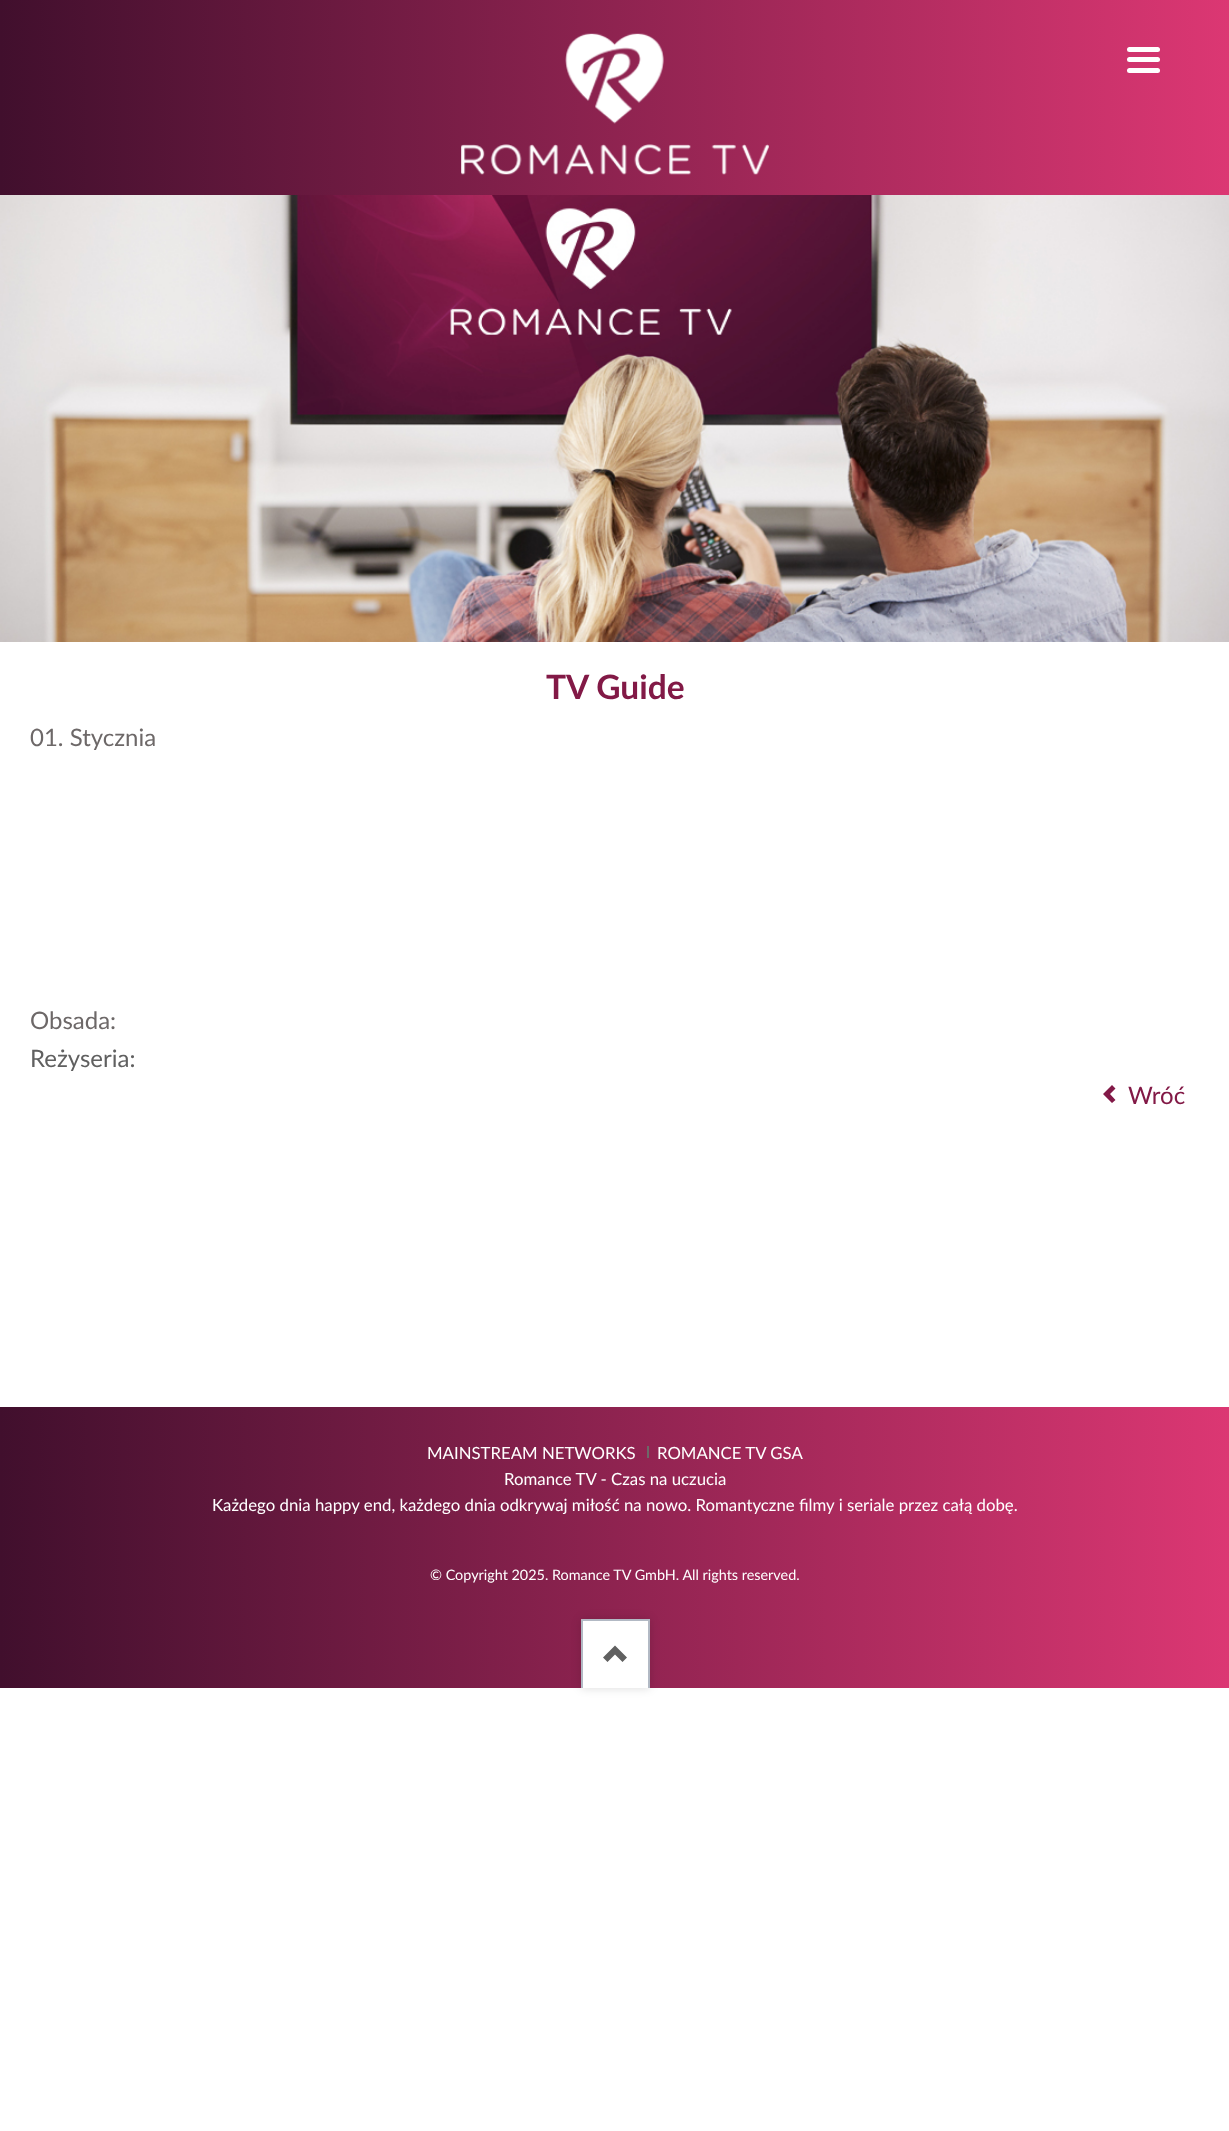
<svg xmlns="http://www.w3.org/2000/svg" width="1229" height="2131">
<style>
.a{font:bold 33.5px Lato;fill:#821946}
.b{font:24px Lato;fill:#6d6868}
.c{font:24px Lato;fill:#606060}
.d{font:24px Lato;fill:#821946}
.e{font:16.8px Lato;fill:#fff}
.f{font:14.4px Lato;fill:#fff}
</style>
<defs>
<linearGradient id="g1" gradientUnits="userSpaceOnUse" x1="0" y1="844" x2="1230" y2="844"><stop offset="0" stop-color="#410f2d"/><stop offset="1" stop-color="#dc3773"/></linearGradient>
</defs>
<rect width="100%" height="100%" fill="#fff"/>
<path fill="url(#g1)" d="M0 0h1229v1688H0z"/>
<image href="1.png" x="461" y="33" width="308" height="142"/>
<rect fill="#fff" x="1127" y="68" width="33" height="5" rx="2.5"/>
<rect fill="#fff" x="1127" y="57" width="33" height="5" rx="2.5"/>
<rect fill="#fff" x="1127" y="47" width="33" height="5" rx="2.5"/>
<path fill="#fff" d="M0 642h1229v765H0z"/>
<image href="2.png" x="0" y="195" width="1229" height="447"/>
<path fill="#821947" d="M1112 1103l3.5-3l-5.5-6l5.5-5.5l-3.5-3.5l-9 9z"/>
<path fill="#6d6868" d="M647 1446h2v12H647z"/>
<rect fill="#00000026" filter="blur(5px)" x="581" y="1619" width="69" height="69" rx="1.5"/>
<path fill="#fff" d="M582.5 1619h66c1 0 1.5 .5 1.5 1.5v67.5h-69v-67.5c0-1 .5-1.5 1.5-1.5z"/>
<path fill="#b2b9c4" d="M582 1619h68v2H582z"/>
<path fill="#b2b9c4" d="M648 1620h2v68H648z"/>
<path fill="#b2b9c4" d="M581 1620h2v68H581z"/>
<path fill="#606060" d="M603 1657.5l4.5 4.5l7.5-7.5l7.5 7.5l4.5-4.5l-12-12z"/>
<text class="a" x="546" y="699">TV Guide</text>
<text class="b" x="30" y="746">01. Stycznia</text>
<text class="b" x="30" y="1029">Obsada:</text>
<text class="c" x="30" y="1067">Reżyseria:</text>
<text class="d" x="1128" y="1104">Wróć</text>
<text class="e" x="427" y="1459">MAINSTREAM NETWORKS</text>
<text class="e" x="657" y="1459">ROMANCE TV GSA</text>
<text class="e" x="504" y="1485">Romance TV - Czas na uczucia</text>
<text class="e" x="212" y="1511">Każdego dnia happy end, każdego dnia odkrywaj miłość na nowo. Romantyczne filmy i seriale przez całą dobę.</text>
<text class="f" x="430" y="1580">© Copyright 2025. Romance TV GmbH. All rights reserved.</text>
</svg>
